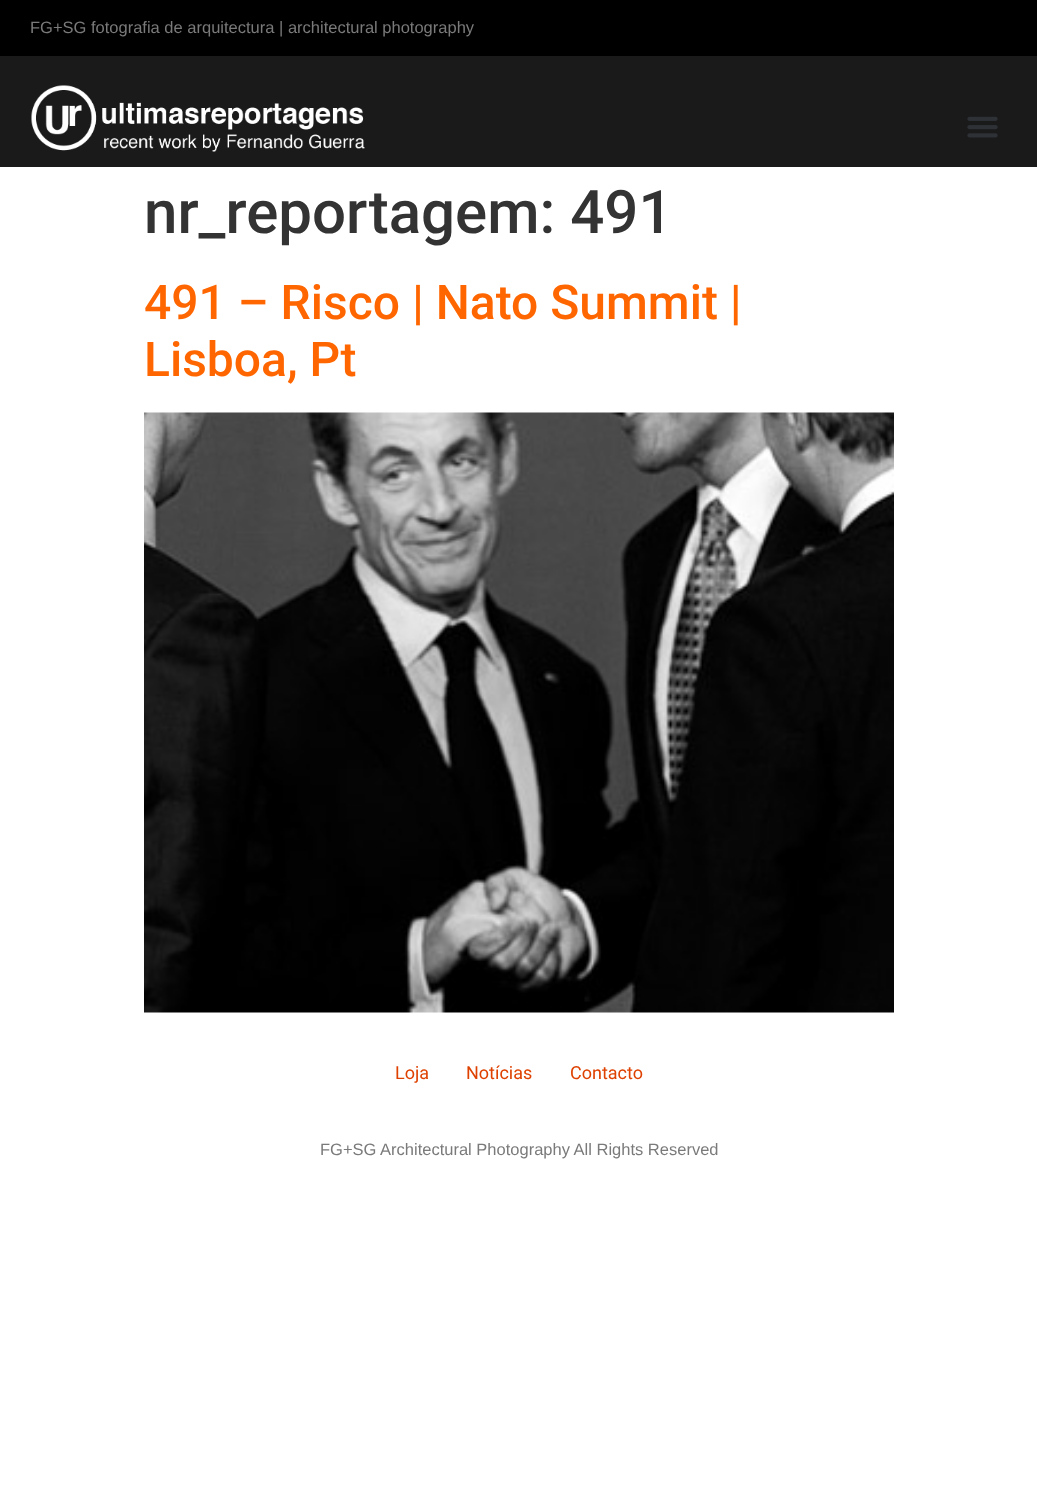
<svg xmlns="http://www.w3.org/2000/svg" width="1037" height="1501">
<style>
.a{font:16.5px Liberation Sans;fill:#7a7a7a}
.b{font:500 60px Roboto;fill:#333}
.c{font:500 48px Roboto;fill:#f60}
.d{font:18px Roboto;fill:#de4100}
</style>
<rect width="100%" height="100%" fill="#fff"/>
<path fill="#000" d="M0 0h1037v56H0z"/>
<path fill="#1a1a1a" d="M0 56h1037v111H0z"/>
<image href="1.png" x="31" y="85" width="334" height="67"/>
<image href="2.png" x="967" y="116" width="31" height="22"/>
<image href="3.png" x="144" y="412" width="750" height="601"/>
<text class="a" x="30" y="33">FG+SG fotografia de arquitectura | architectural photography</text>
<text class="b" x="144" y="233">nr_reportagem: 491</text>
<text class="c" x="144" y="319">491 – Risco | Nato Summit |</text>
<text class="c" x="144" y="376">Lisboa, Pt</text>
<text class="d" x="395" y="1079">Loja</text>
<text class="d" x="466" y="1079">Notícias</text>
<text class="d" x="570" y="1079">Contacto</text>
<text class="a" x="320" y="1155">FG+SG Architectural Photography All Rights Reserved</text>
</svg>
